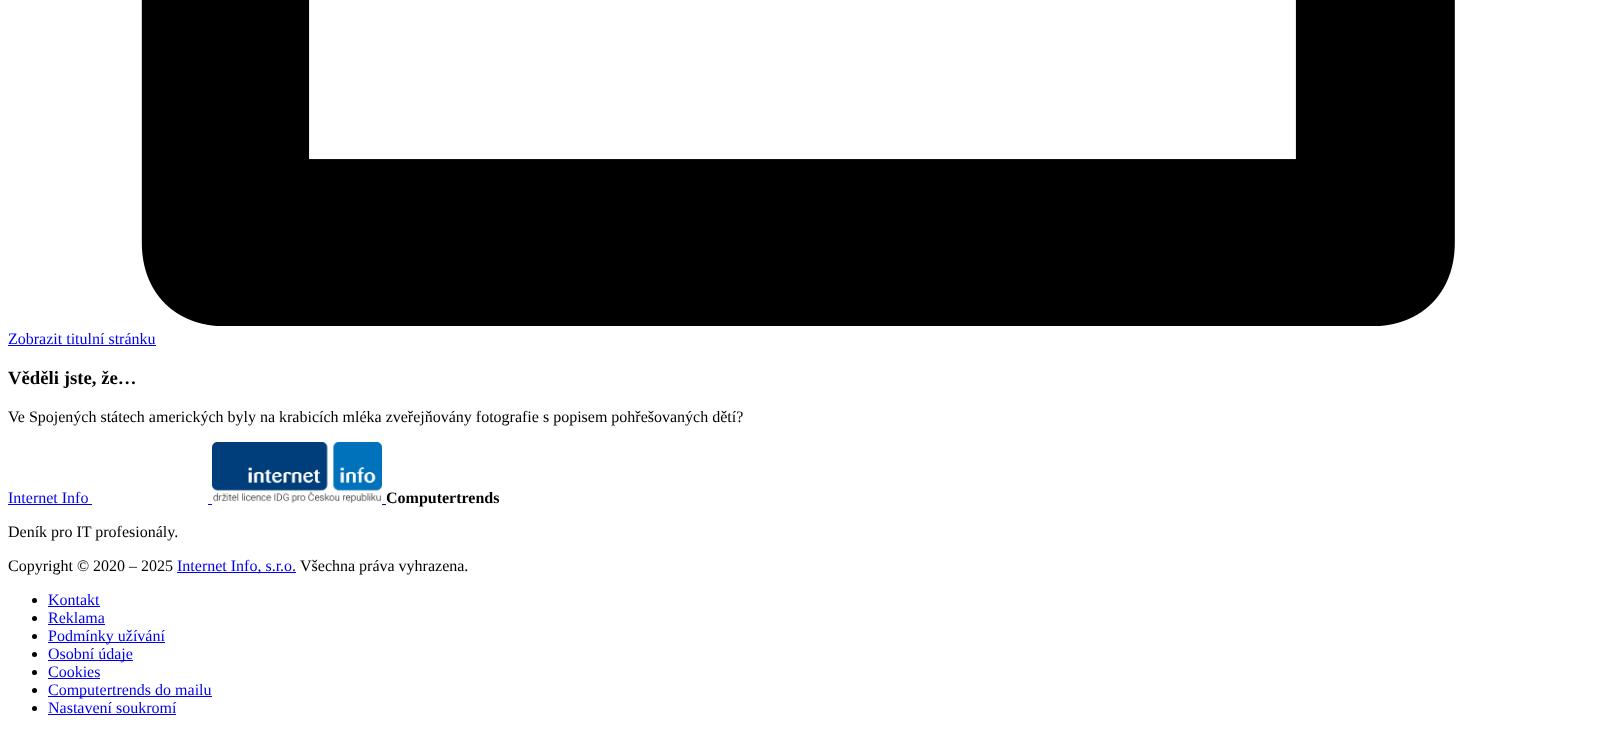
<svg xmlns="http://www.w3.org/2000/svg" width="1605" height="733">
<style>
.a{font:16px Liberation Serif;fill:#00e}
.b{font:bold 18.75px Liberation Serif;fill:#000}
.c{font:16px Liberation Serif;fill:#000}
.d{font:bold 16px Liberation Serif;fill:#000}
</style>
<rect width="100%" height="100%" fill="#fff"/>
<image href="1.png" x="141" y="0" width="1314" height="326"/>
<path fill="#00e" d="M8 345h148v1H8z"/>
<path fill="#00e" d="M8 504h84v1H8z"/>
<path fill="#00e" d="M208 504h4v1H208z"/>
<path fill="#00e" d="M382 504h4v1H382z"/>
<image href="2.png" x="212" y="442" width="170" height="61"/>
<path fill="#00e" d="M177 572h119v1H177z"/>
<circle fill="#000" cx="34.5" cy="600.5" r="2.5"/>
<path fill="#00e" d="M48 606h52v1H48z"/>
<circle fill="#000" cx="34.5" cy="618.5" r="2.5"/>
<path fill="#00e" d="M48 624h57v1H48z"/>
<circle fill="#000" cx="34.5" cy="636.5" r="2.5"/>
<path fill="#00e" d="M48 642h117v1H48z"/>
<circle fill="#000" cx="34.5" cy="654.5" r="2.5"/>
<path fill="#00e" d="M48 660h85v1H48z"/>
<circle fill="#000" cx="34.5" cy="672.5" r="2.5"/>
<path fill="#00e" d="M48 678h52v1H48z"/>
<circle fill="#000" cx="34.5" cy="690.5" r="2.5"/>
<path fill="#00e" d="M48 696h164v1H48z"/>
<circle fill="#000" cx="34.5" cy="708.5" r="2.5"/>
<path fill="#00e" d="M48 714h128v1H48z"/>
<text class="a" x="8" y="344">Zobrazit titulní stránku</text>
<text class="b" x="8" y="384">Věděli jste, že…</text>
<text class="c" x="8" y="422">Ve Spojených státech amerických byly na krabicích mléka zveřejňovány fotografie s popisem pohřešovaných dětí?</text>
<text class="a" x="8" y="503">Internet Info</text>
<text class="d" x="386" y="503">Computertrends</text>
<text class="c" x="8" y="537">Deník pro IT profesionály.</text>
<text class="c" x="8" y="571">Copyright © 2020 – 2025</text>
<text class="a" x="177" y="571">Internet Info, s.r.o.</text>
<text class="c" x="300" y="571">Všechna práva vyhrazena.</text>
<text class="a" x="48" y="605">Kontakt</text>
<text class="a" x="48" y="623">Reklama</text>
<text class="a" x="48" y="641">Podmínky užívání</text>
<text class="a" x="48" y="659">Osobní údaje</text>
<text class="a" x="48" y="677">Cookies</text>
<text class="a" x="48" y="695">Computertrends do mailu</text>
<text class="a" x="48" y="713">Nastavení soukromí</text>
</svg>
